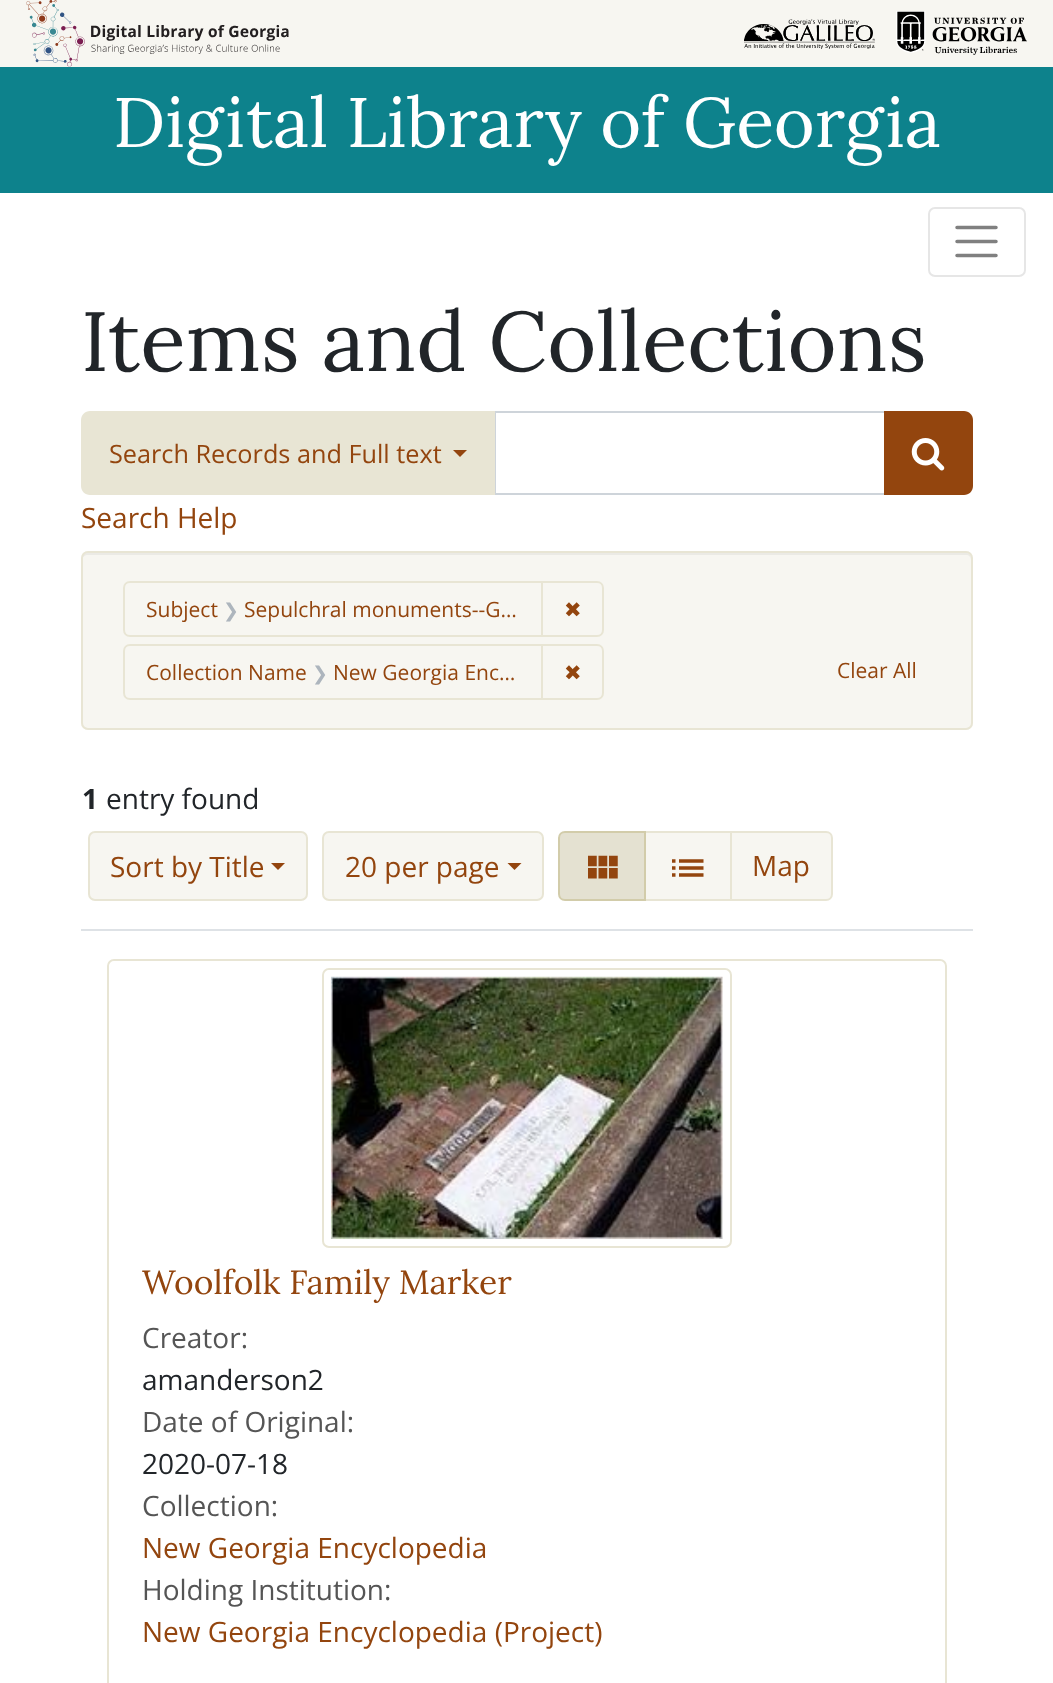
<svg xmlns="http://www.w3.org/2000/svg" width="1053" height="1683">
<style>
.a{font:70px Lora;fill:#fff}
.b{font:84px Lora;fill:#212529}
.c{font:25.25px Open Sans;fill:#93450e}
.d{font:28px Open Sans;fill:#93450e}
.e{font:21px Open Sans;fill:#93450e}
.f{font:19px DejaVu Sans;fill:#adb5bd}
.g{font:21px DejaVu Sans;fill:#93450e}
.h{font:bold 28px Open Sans;fill:#212529}
.i{font:28px Open Sans;fill:#212529}
.j{font:33.6px Lora;fill:#93450e}
.k{font:28px Open Sans;fill:#555}
</style>
<rect width="100%" height="100%" fill="#fff"/>
<path fill="#f7f6f1" d="M0 0h1053v67H0z"/>
<image href="1.png" x="26" y="0" width="263" height="67"/>
<image href="2.png" x="744" y="19" width="131" height="30"/>
<image href="3.png" x="896" y="11" width="131" height="44"/>
<path fill="#0d828c" d="M0 67h1053v126H0z"/>
<rect fill="none" stroke="#e6e6e6" stroke-width="2" x="929" y="208" width="96" height="68" rx="6"/>
<path fill="none" stroke="#808080" stroke-width="3.5" stroke-linecap="round" d="M957 227.5h39m-39 14h39m-39 14h39"/>
<path fill="none" stroke="#ced4da" stroke-width="2" d="M495 412h390v82H495z"/>
<path fill="#e8e5d4" d="M90 411h405v84h-405c-5 0-9-4-9-9v-66c0-5 4-9 9-9z"/>
<path fill="#93450e" d="M453 450h14l-7 7z"/>
<path fill="#93450e" d="M884 411h80c5 0 9 4 9 9v66c0 5-4 9-9 9h-80z"/>
<image href="4.png" x="911" y="438" width="34" height="33"/>
<rect fill="#f7f6f1" x="81" y="551" width="892" height="179" rx="7"/>
<path fill="#ebeae5" d="M88 555h878c3 0 5 2 5 5v-2c0-3-2-5-5-5h-879c-3 0-5 2-5 5v2c0-3 3-5 6-5z"/>
<rect fill="none" stroke="#e8e5d4" stroke-width="2" x="82" y="552" width="890" height="177" rx="6"/>
<path fill="none" stroke="#e8e5d4" stroke-width="2" d="M130 582h412v54h-412c-3.5 0-6-2.5-6-6v-42c0-3.5 2.5-6 6-6z"/>
<path fill="none" stroke="#e8e5d4" stroke-width="2" d="M542 582h55c3.5 0 6 2.5 6 6v42c0 3.5-2.5 6-6 6h-55z"/>
<path fill="none" stroke="#e8e5d4" stroke-width="2" d="M130 645h412v54h-412c-3.5 0-6-2.5-6-6v-42c0-3.5 2.5-6 6-6z"/>
<path fill="none" stroke="#e8e5d4" stroke-width="2" d="M542 645h55c3.5 0 6 2.5 6 6v42c0 3.5-2.5 6-6 6h-55z"/>
<path fill="#dee2e6" d="M81 929h892v2H81z"/>
<rect fill="#f7f6f1" stroke="#e8e5d4" stroke-width="2" x="89" y="832" width="218" height="68" rx="6"/>
<path fill="#93450e" d="M271 863h14l-7 7z"/>
<rect fill="#f7f6f1" stroke="#e8e5d4" stroke-width="2" x="323" y="832" width="220" height="68" rx="6"/>
<path fill="#93450e" d="M507.5 863h14l-7 7z"/>
<path fill="#f7f6f1" stroke="#e8e5d4" stroke-width="2" d="M645 832h86v68H645z"/>
<path fill="#e4e1d1" stroke="#d2ccaa" stroke-width="2" d="M565 832h80v68h-80c-3.5 0-6-2.5-6-6v-56c0-3.5 2.5-6 6-6z"/>
<image href="5.png" x="588" y="855" width="30" height="24"/>
<image href="6.png" x="672" y="859" width="32" height="18"/>
<path fill="#f7f6f1" stroke="#e8e5d4" stroke-width="2" d="M731 832h95c3.5 0 6 2.5 6 6v56c0 3.5-2.5 6-6 6h-95z"/>
<rect fill="none" stroke="#e8e5d4" stroke-width="2" x="108" y="960" width="838" height="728" rx="6"/>
<rect fill="none" stroke="#e8e5d4" stroke-width="2" x="323" y="969" width="408" height="278" rx="6"/>
<image href="7.png" x="330" y="976" width="393" height="263"/>
<text class="a" x="113" y="147">Digital Library of Georgia</text>
<text class="b" x="81" y="371">Items and Collections</text>
<text class="c" x="109" y="463">Search Records and Full text</text>
<text class="d" x="81" y="528">Search Help</text>
<text class="e" x="146" y="617">Subject</text>
<text class="f" x="223" y="617">❯</text>
<text class="e" x="244" y="617">Sepulchral monuments--G…</text>
<text class="g" x="564" y="617">✖</text>
<text class="e" x="146" y="680">Collection Name</text>
<text class="f" x="312" y="680">❯</text>
<text class="e" x="333" y="680">New Georgia Enc…</text>
<text class="g" x="564" y="680">✖</text>
<text class="e" x="837" y="678">Clear All</text>
<text class="h" x="82" y="809">1</text>
<text class="i" x="106" y="809">entry found</text>
<text class="d" x="110" y="877">Sort by Title</text>
<text class="d" x="345" y="877">20 per page</text>
<text class="d" x="752" y="876">Map</text>
<text class="j" x="142" y="1294">Woolfolk Family Marker</text>
<text class="k" x="142" y="1348">Creator:</text>
<text class="i" x="142" y="1390">amanderson2</text>
<text class="k" x="142" y="1432">Date of Original:</text>
<text class="i" x="142" y="1474">2020-07-18</text>
<text class="k" x="142" y="1516">Collection:</text>
<text class="d" x="142" y="1558">New Georgia Encyclopedia</text>
<text class="k" x="142" y="1600">Holding Institution:</text>
<text class="d" x="142" y="1642">New Georgia Encyclopedia (Project)</text>
</svg>
